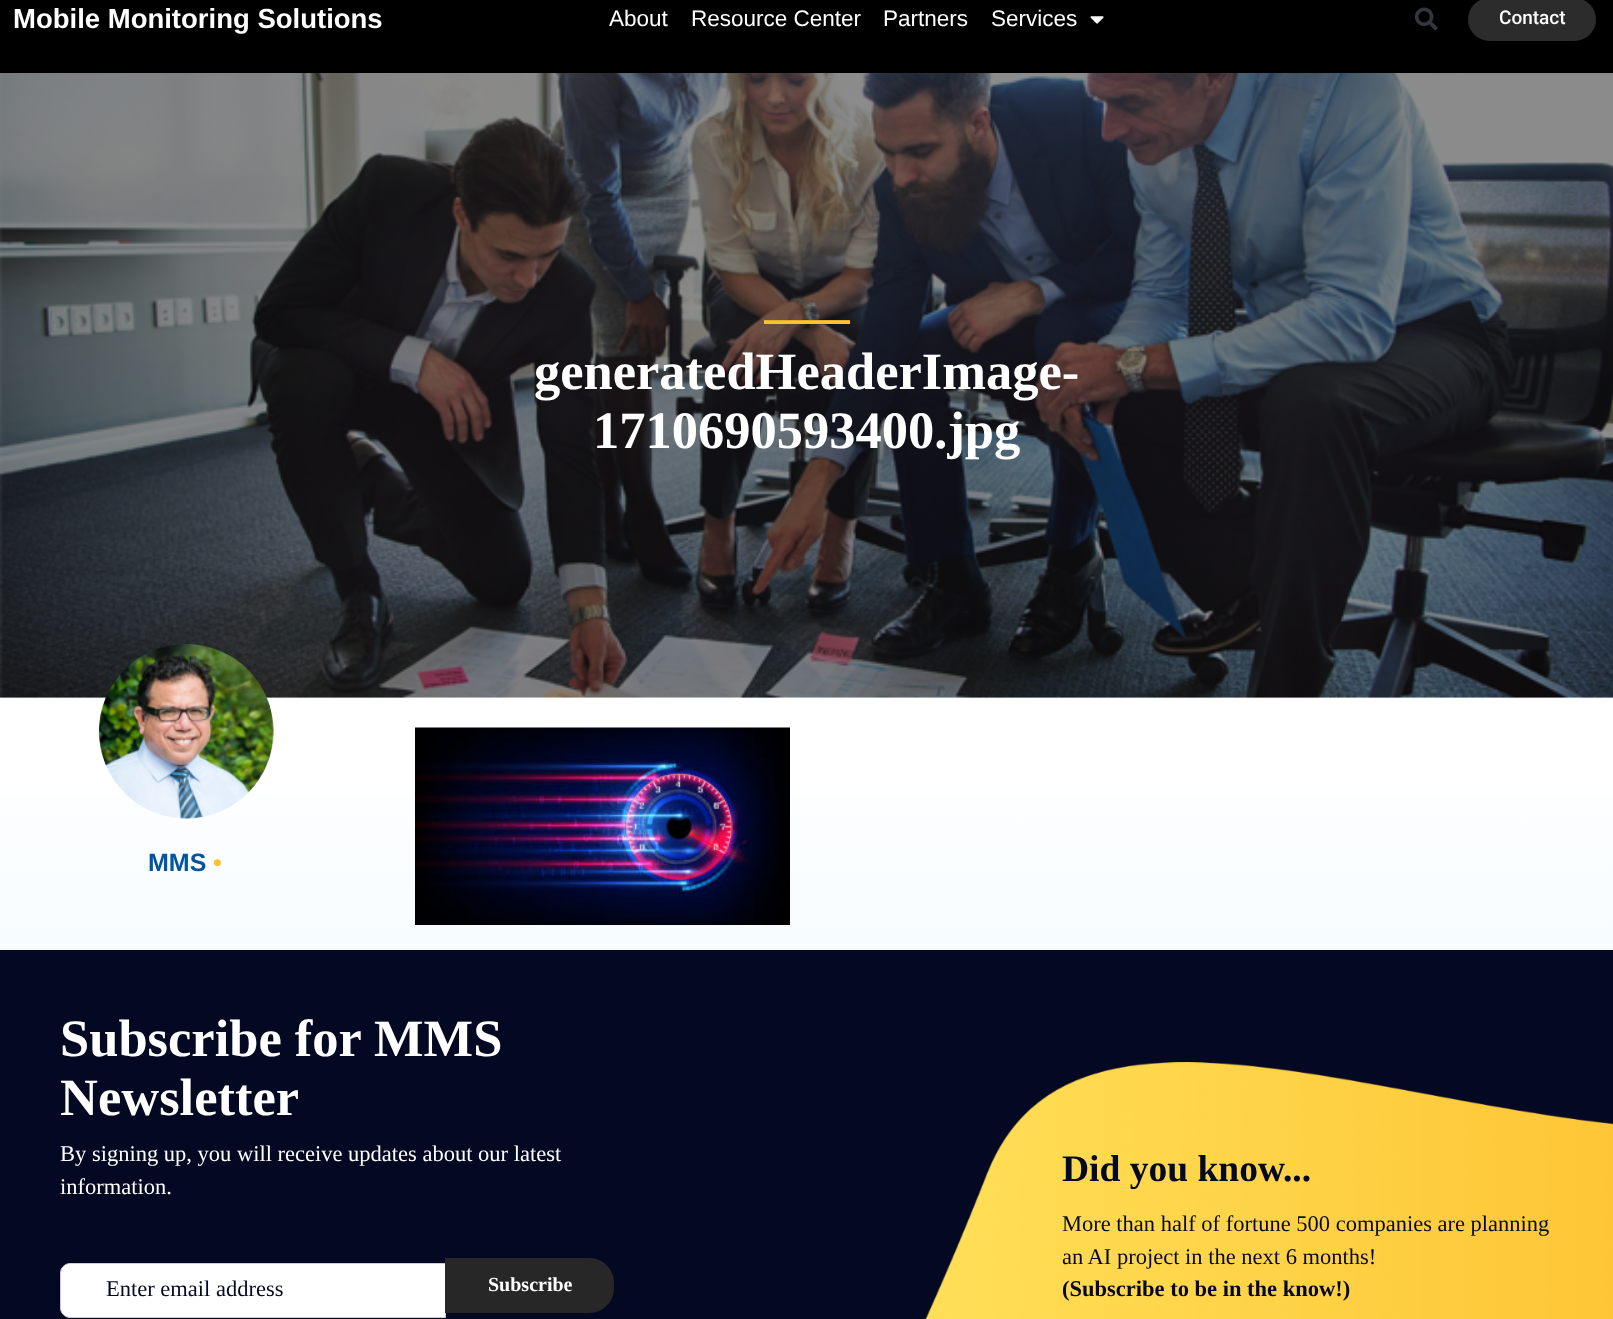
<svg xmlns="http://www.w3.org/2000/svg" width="1613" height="1319">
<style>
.a{font:bold 27.5px Liberation Sans;fill:#fff}
.b{font:22.5px Liberation Sans;fill:#fff}
.c{font:500 19px Roboto;fill:#fff}
.d{font:bold 52.5px Liberation Serif;fill:#fff}
.e{font:bold 25px Liberation Sans;fill:#0253a2}
.f{font:bold 25px Liberation Sans;fill:#fec12f}
.g{font:22.5px Liberation Serif;fill:#fff}
.h{font:22.5px Liberation Serif;fill:#040923}
.i{font:bold 20px Liberation Serif;fill:#fff}
.j{font:bold 37.5px Liberation Serif;fill:#040923}
.k{font:bold 22.5px Liberation Serif;fill:#040923}
</style>
<defs>
<linearGradient id="g1" gradientUnits="userSpaceOnUse" x1="807" y1="950" x2="807" y2="723"><stop offset="0" stop-color="#f7fcff"/><stop offset="1" stop-color="#fff"/></linearGradient>
</defs>
<rect width="100%" height="100%" fill="#fff"/>
<path fill="#000" d="M0 0h1613v73H0z"/>
<image href="1.png" x="1090" y="16" width="14" height="8"/>
<image href="2.png" x="1415" y="7" width="23" height="24"/>
<rect fill="#2c2c2c" x="1468" y="-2" width="128" height="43" rx="21.5"/>
<image href="3.png" x="0" y="73" width="1613" height="625"/>
<path fill="#fec12f" d="M764 321h86v3H764z"/>
<path fill="#e5ae2a" d="M764 320h86v1H764z"/>
<path fill="url(#g1)" d="M0 794h1613v156H0z"/>
<image href="4.png" x="98" y="644" width="176" height="175"/>
<image href="5.png" x="415" y="727" width="375" height="198"/>
<path fill="#040923" d="M0 950h1613v369H0z"/>
<path fill="#fff" stroke="#ccc" d="M70 1263.5h375.5v54h-375.5c-5 0-9.5-4.5-9.5-9.5v-35c0-5 4.5-9.5 9.5-9.5z"/>
<path fill="#272727" d="M445 1258h144c14 0 25 11 25 25v5c0 14-11 25-25 25h-144z"/>
<image href="6.png" x="925" y="1062" width="688" height="257"/>
<text class="a" x="13" y="28">Mobile Monitoring Solutions</text>
<text class="b" x="609" y="26">About</text>
<text class="b" x="691" y="26">Resource Center</text>
<text class="b" x="883" y="26">Partners</text>
<text class="b" x="991" y="26">Services</text>
<text class="c" x="1499" y="24">Contact</text>
<text class="d" x="534" y="389">generatedHeaderImage-</text>
<text class="d" x="593" y="448">1710690593400.jpg</text>
<text class="e" x="148" y="871">MMS</text>
<text class="f" x="213" y="871">•</text>
<text class="d" x="60" y="1056">Subscribe for MMS</text>
<text class="d" x="60" y="1115">Newsletter</text>
<text class="g" x="60" y="1161">By signing up, you will receive updates about our latest</text>
<text class="g" x="60" y="1194">information.</text>
<text class="h" x="106" y="1296">Enter email address</text>
<text class="i" x="488" y="1291">Subscribe</text>
<text class="j" x="1062" y="1181">Did you know...</text>
<text class="h" x="1062" y="1231">More than half of fortune 500 companies are planning</text>
<text class="h" x="1062" y="1264">an AI project in the next 6 months!</text>
<text class="k" x="1062" y="1296">(Subscribe to be in the know!)</text>
</svg>
